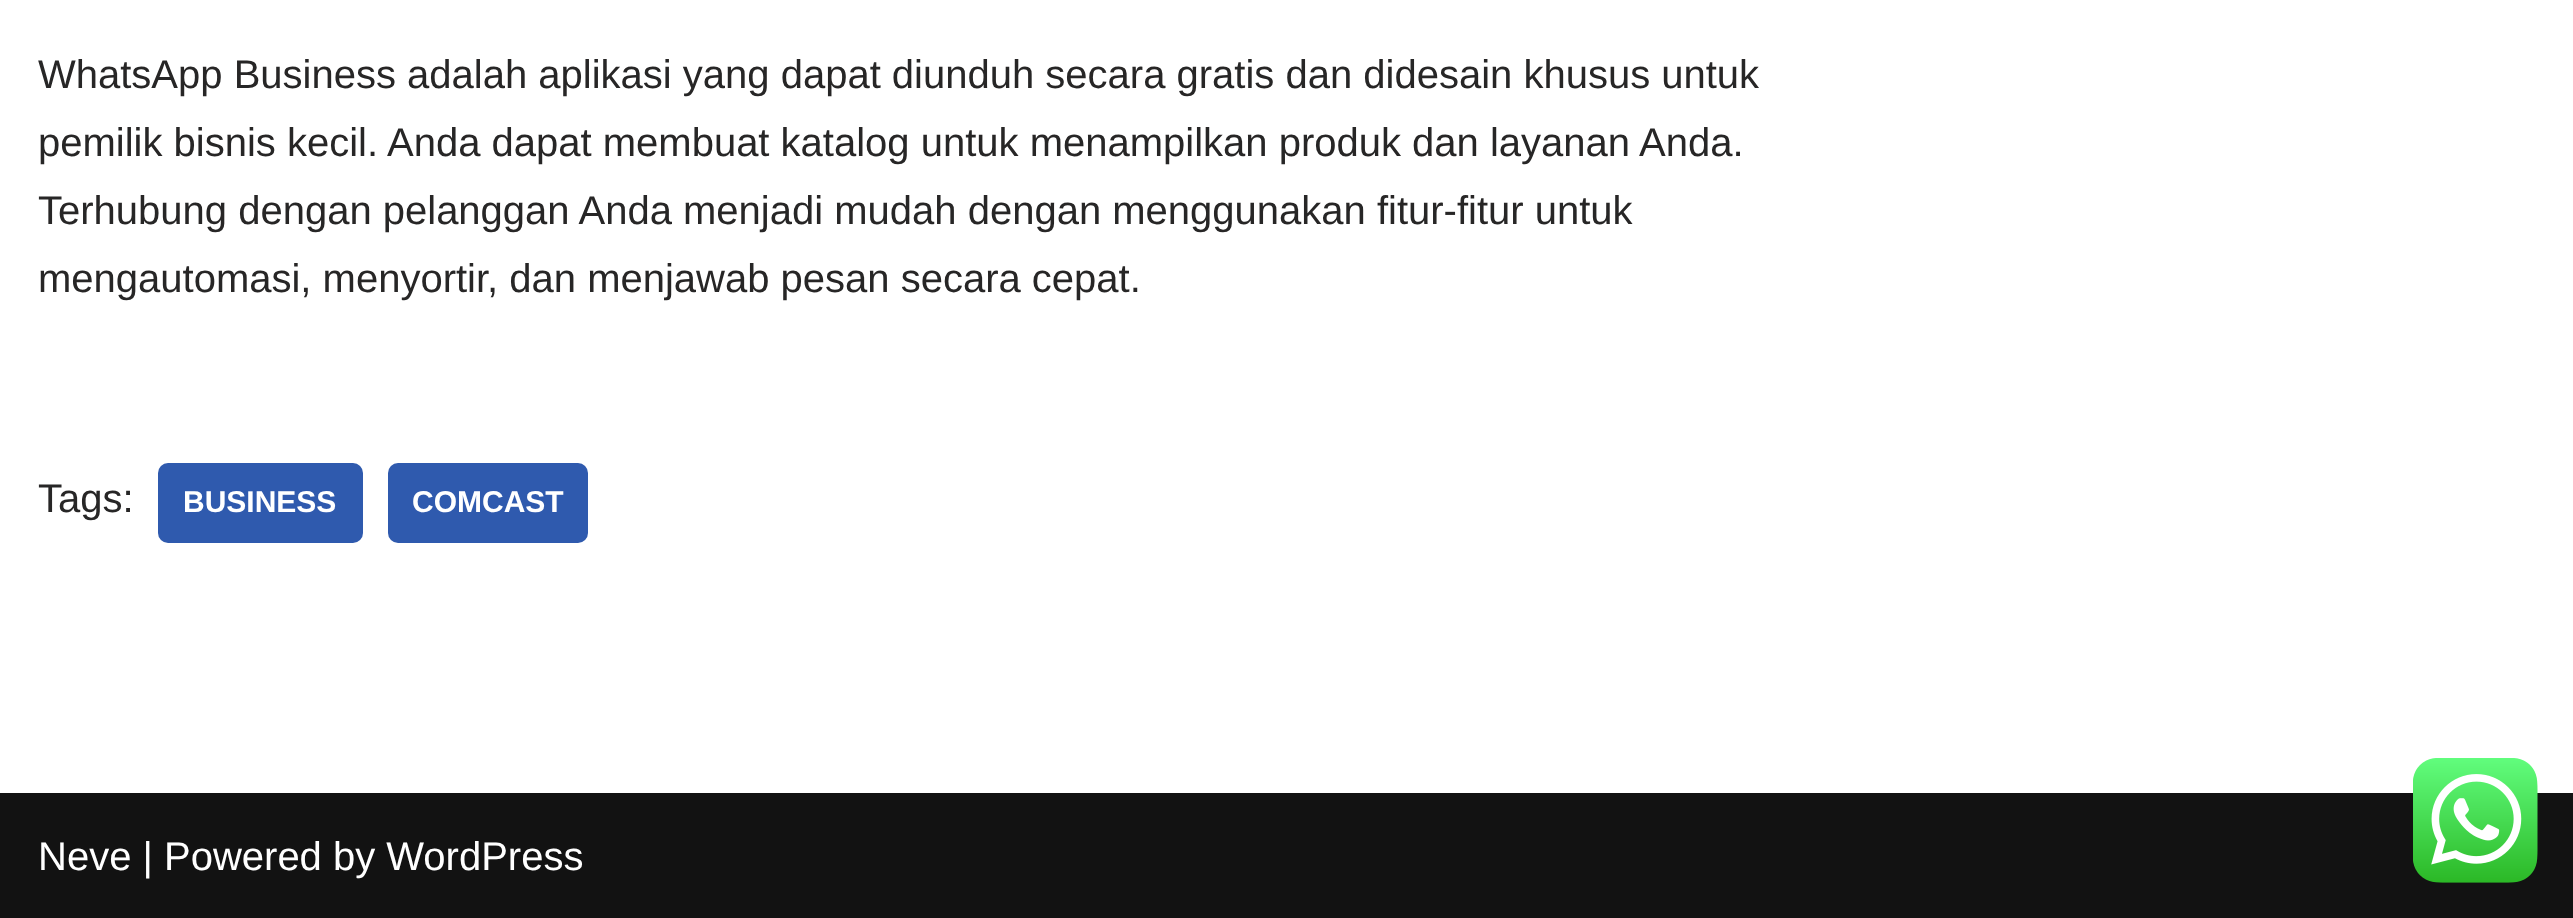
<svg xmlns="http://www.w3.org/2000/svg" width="2573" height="918">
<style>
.a{font:40px Liberation Sans;fill:#272626}
.b{font:bold 30px Liberation Sans;fill:#fff}
.c{font:40px Liberation Sans;fill:#fff}
</style>
<rect width="100%" height="100%" fill="#fff"/>
<rect fill="#2f5aae" x="158" y="463" width="205" height="80" rx="10"/>
<rect fill="#2f5aae" x="388" y="463" width="200" height="80" rx="10"/>
<path fill="#121212" d="M0 793h2573v125H0z"/>
<image href="1.png" x="2413" y="758" width="125" height="125"/>
<text class="a" x="38" y="88">WhatsApp Business adalah aplikasi yang dapat diunduh secara gratis dan didesain khusus untuk</text>
<text class="a" x="38" y="156">pemilik bisnis kecil. Anda dapat membuat katalog untuk menampilkan produk dan layanan Anda.</text>
<text class="a" x="38" y="224">Terhubung dengan pelanggan Anda menjadi mudah dengan menggunakan fitur-fitur untuk</text>
<text class="a" x="38" y="292">mengautomasi, menyortir, dan menjawab pesan secara cepat.</text>
<text class="a" x="38" y="512">Tags:</text>
<text class="b" x="183" y="512">BUSINESS</text>
<text class="b" x="412" y="512">COMCAST</text>
<text class="c" x="38" y="870">Neve | Powered by WordPress</text>
</svg>
